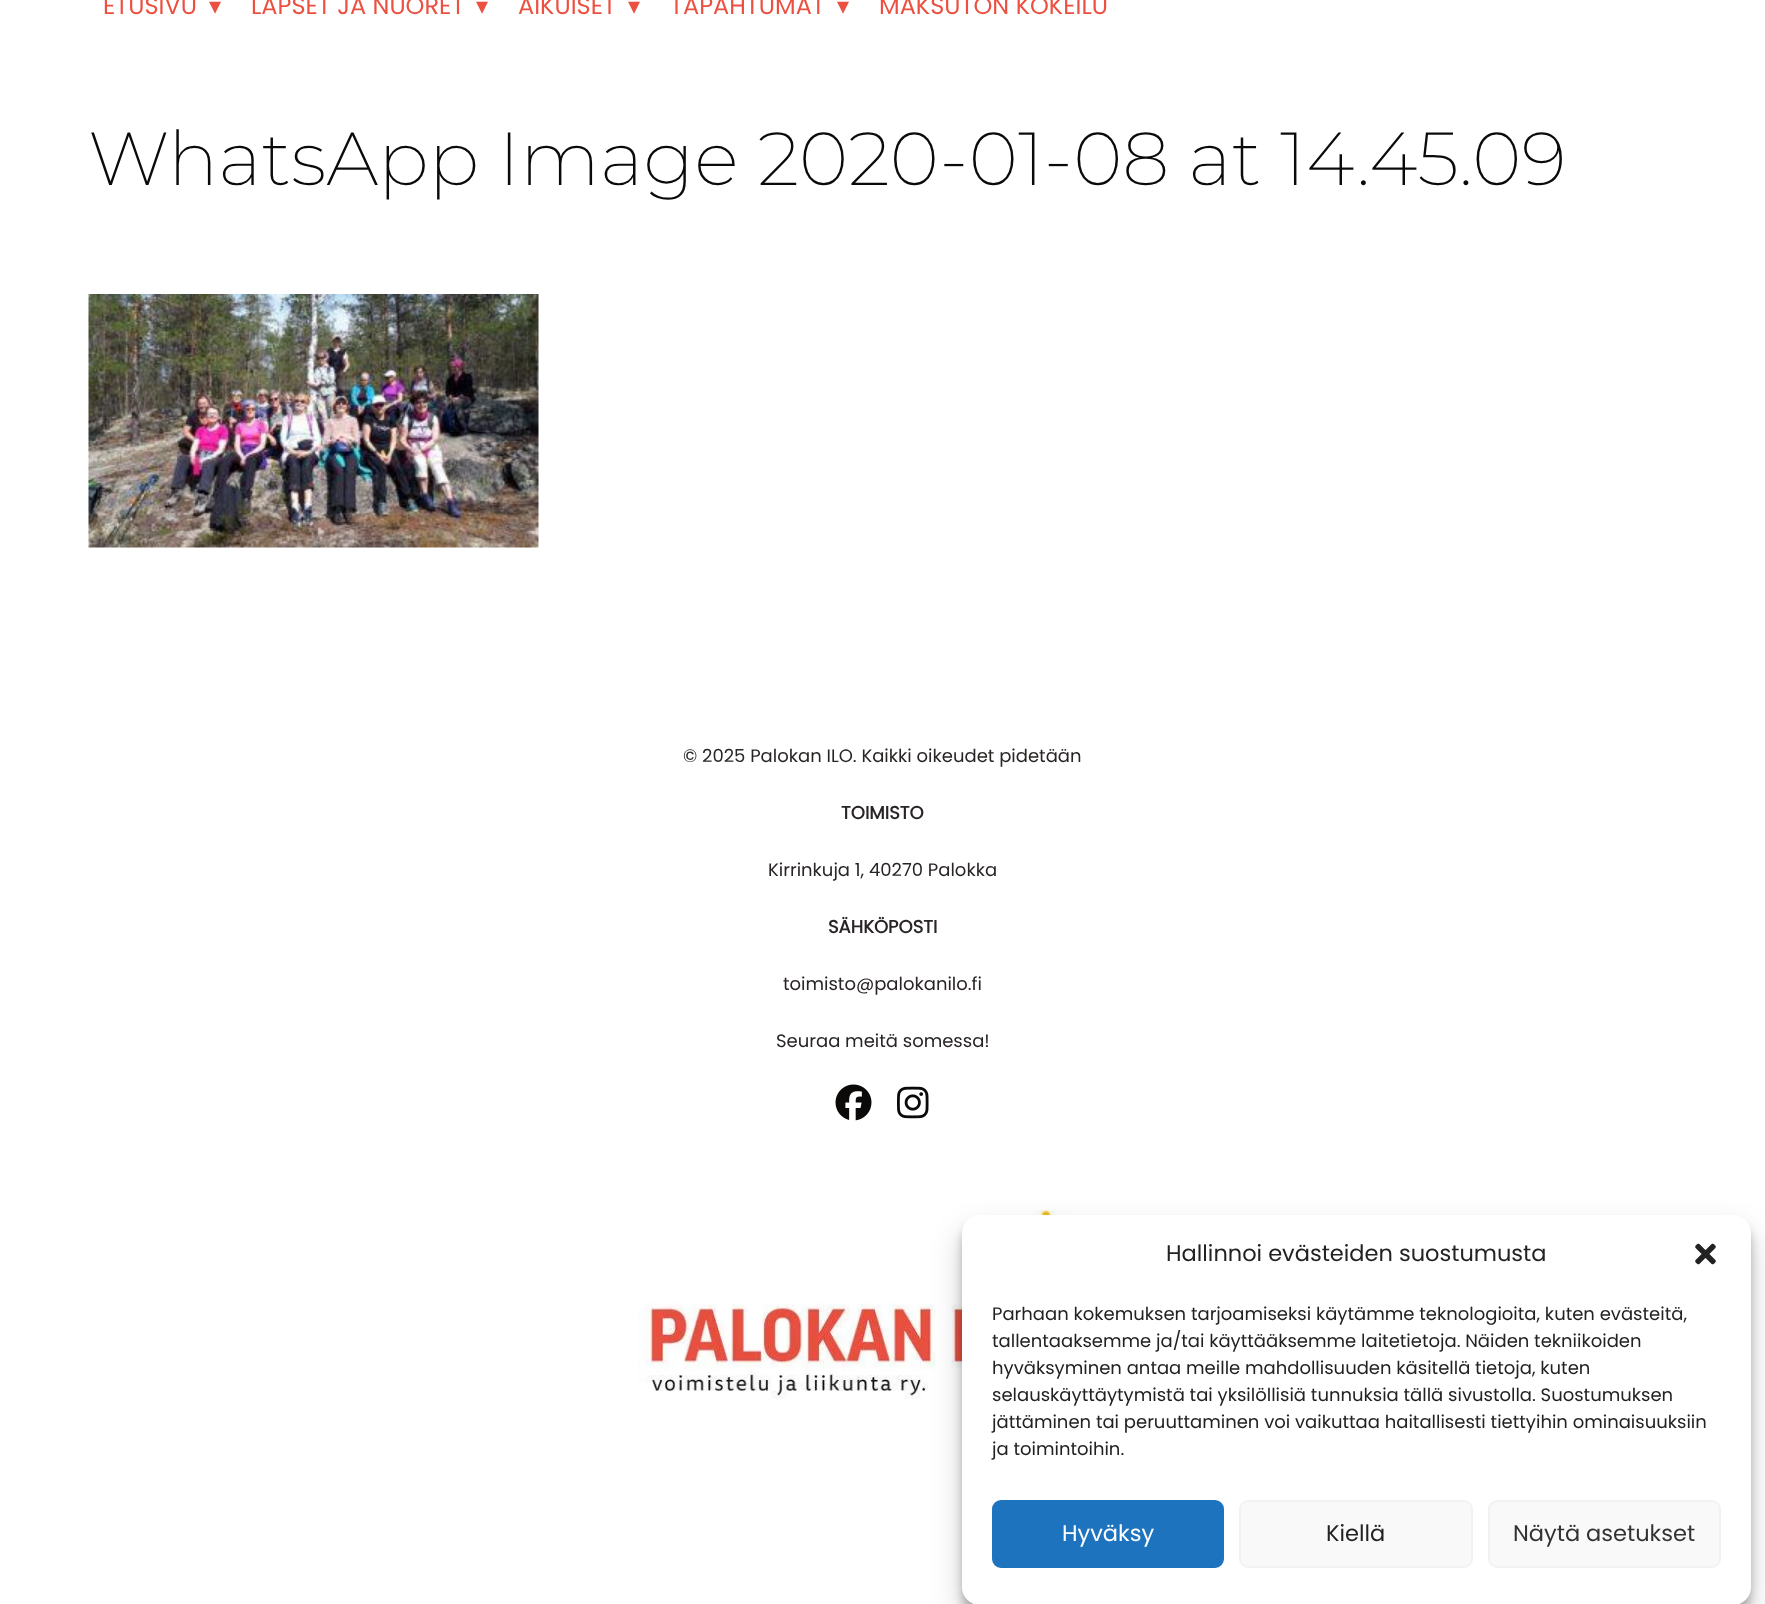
<svg xmlns="http://www.w3.org/2000/svg" width="1765" height="1604">
<style>
.a{font:24px Poppins;fill:#eb5041}
.b{font:24px DejaVu Sans;fill:#eb5041}
.c{font:100 75px Montserrat;fill:#0c0a09}
.d{font:18px Poppins;fill:#292524}
.e{font:bold 18px Poppins;fill:#292524}
.f{font:22.5px Poppins;fill:#222}
.g{font:18px Poppins;fill:#222}
.h{font:22.5px Poppins;fill:#fff}
.i{font:22.5px Poppins;fill:#333}
</style>
<rect width="100%" height="100%" fill="#fff"/>
<image href="1.png" x="88" y="294" width="451" height="254"/>
<image href="2.png" x="835" y="1084" width="37" height="37"/>
<image href="3.png" x="897" y="1086" width="32" height="33"/>
<image href="4.png" x="637" y="1210" width="491" height="189"/>
<rect fill="#0000003b" filter="blur(4.5px)" x="962" y="1224" width="789" height="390" rx="18"/>
<rect fill="#00000030" filter="blur(15px)" x="962" y="1230" width="789" height="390" rx="18"/>
<rect fill="#fff" x="962" y="1215" width="789" height="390" rx="18"/>
<image href="5.png" x="1695" y="1243" width="21" height="22"/>
<rect fill="#1e73be" stroke="#1e73be" stroke-width="2" x="993" y="1501" width="230" height="66" rx="8"/>
<rect fill="#f9f9f9" stroke="#f2f2f2" stroke-width="2" x="1240" y="1501" width="232" height="66" rx="8"/>
<rect fill="#f9f9f9" stroke="#f2f2f2" stroke-width="2" x="1489" y="1501" width="231" height="66" rx="8"/>
<text class="a" x="103" y="14">ETUSIVU</text>
<text class="b" x="209" y="14">▾</text>
<text class="a" x="251" y="14">LAPSET JA NUORET</text>
<text class="b" x="476" y="14">▾</text>
<text class="a" x="518" y="14">AIKUISET</text>
<text class="b" x="628" y="14">▾</text>
<text class="a" x="670" y="14">TAPAHTUMAT</text>
<text class="b" x="837" y="14">▾</text>
<text class="a" x="879" y="14">MAKSUTON KOKEILU</text>
<text class="c" x="88" y="185">WhatsApp Image 2020-01-08 at 14.45.09</text>
<text class="d" x="683" y="762">© 2025 Palokan ILO. Kaikki oikeudet pidetään</text>
<text class="e" x="841" y="819">TOIMISTO</text>
<text class="d" x="768" y="876">Kirrinkuja 1, 40270 Palokka</text>
<text class="e" x="828" y="933">SÄHKÖPOSTI</text>
<text class="d" x="783" y="990">toimisto@palokanilo.fi</text>
<text class="d" x="776" y="1047">Seuraa meitä somessa!</text>
<text class="f" x="1166" y="1261">Hallinnoi evästeiden suostumusta</text>
<text class="g" x="992" y="1320">Parhaan kokemuksen tarjoamiseksi käytämme teknologioita, kuten evästeitä,</text>
<text class="g" x="992" y="1347">tallentaaksemme ja/tai käyttääksemme laitetietoja. Näiden tekniikoiden</text>
<text class="g" x="992" y="1374">hyväksyminen antaa meille mahdollisuuden käsitellä tietoja, kuten</text>
<text class="g" x="992" y="1401">selauskäyttäytymistä tai yksilöllisiä tunnuksia tällä sivustolla. Suostumuksen</text>
<text class="g" x="992" y="1428">jättäminen tai peruuttaminen voi vaikuttaa haitallisesti tiettyihin ominaisuuksiin</text>
<text class="g" x="992" y="1455">ja toimintoihin.</text>
<text class="h" x="1062" y="1541">Hyväksy</text>
<text class="f" x="1326" y="1541">Kiellä</text>
<text class="i" x="1513" y="1541">Näytä asetukset</text>
</svg>
